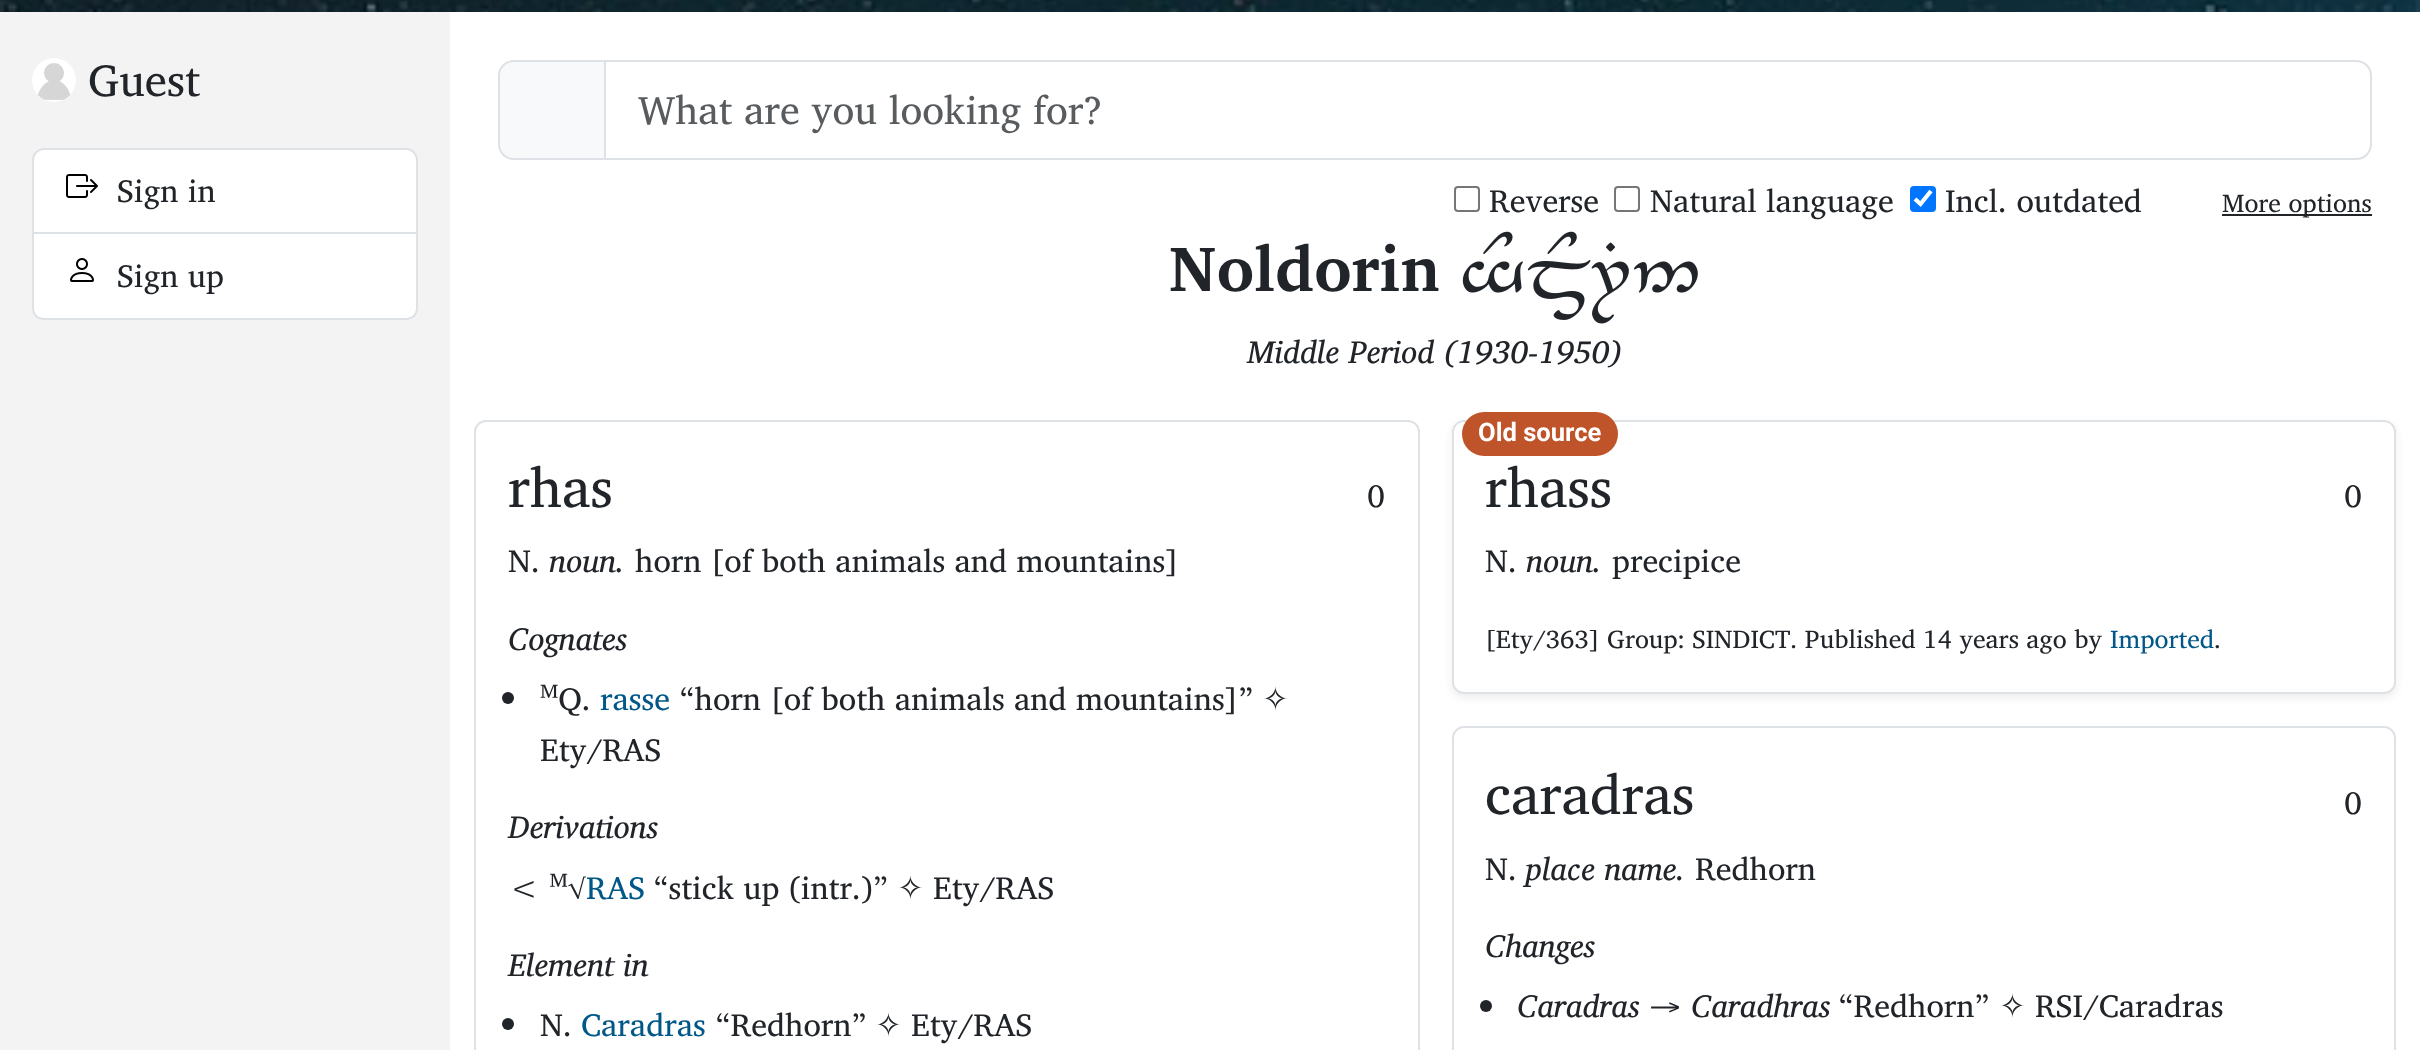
<svg xmlns="http://www.w3.org/2000/svg" width="2420" height="1050">
<style>
.a{font:45px Charis SIL;fill:#212529}
.b{font:32px Charis SIL;fill:#212529}
.c{font:40px Charis SIL;fill:#595c5f}
.d{font:25.6px Charis SIL;fill:#212529}
.e{font:bold 64px Charis SIL;fill:#212529}
.f{font:italic 32px Charis SIL;fill:#212529}
.g{font:56px Charis SIL;fill:#212529}
.h{font:32px Charis SIL;fill:#015788}
.i{font:32px DejaVu Sans;fill:#212529}
.j{font:bold 25.6px Roboto;fill:#fff}
.k{font:25.6px Charis SIL;fill:#015788}
</style>
<defs>
<clipPath id="clip1"><path d="M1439 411h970v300h-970zm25 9h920c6.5 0 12 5.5 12 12v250c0 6.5-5.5 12-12 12h-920c-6.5 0-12-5.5-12-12v-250c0-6.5 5.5-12 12-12z" clip-rule="evenodd"/></clipPath>
</defs>
<rect width="100%" height="100%" fill="#fff"/>
<image href="1.png" x="0" y="0" width="2420" height="12"/>
<path fill="#f3f3f3" d="M0 12h450v1038H0z"/>
<image href="2.png" x="32" y="58" width="44" height="44"/>
<path fill="#fff" stroke="#dee2e6" stroke-width="2" d="M44 149h362c6 0 11 5 11 11v73h-384v-73c0-6 5-11 11-11z"/>
<image href="3.png" x="66" y="174" width="32" height="24"/>
<path fill="#fff" d="M34 234h382v74c0 5.5-4.5 10-10 10h-362c-5.5 0-10-4.5-10-10z"/>
<path fill="#dee2e6" fill-rule="evenodd" d="M32 234h386v74c0 7-5 12-12 12h-362c-7 0-12-5-12-12zm2 0h382v74c0 6-4 10-10 10h-362c-6 0-10-4-10-10z"/>
<image href="4.png" x="70" y="258" width="24" height="24"/>
<path fill="#f8f9fa" stroke="#dee2e6" stroke-width="2" d="M514 61h91v98h-91c-8.5 0-15-6.5-15-15v-68c0-8.5 6.5-15 15-15z"/>
<path fill="none" stroke="#dee2e6" stroke-width="2" d="M605 61h1751c8.5 0 15 6.5 15 15v68c0 8.5-6.5 15-15 15h-1751z"/>
<rect fill="none" stroke="#767676" stroke-width="2" x="1455" y="187" width="24" height="24" rx="3"/>
<rect fill="none" stroke="#767676" stroke-width="2" x="1615" y="187" width="24" height="24" rx="3"/>
<rect fill="#0075ff" x="1910" y="186" width="26" height="26" rx="4"/>
<path fill="none" stroke="#fff" stroke-width="4.2" d="M1915 199l5.5 5l10.5-13"/>
<path fill="#212529" d="M2222 214h150v2H2222z"/>
<image href="5.png" x="1462" y="231" width="236" height="93"/>
<rect fill="none" stroke="#dee2e6" stroke-width="2" x="475" y="421" width="944" height="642" rx="11"/>
<circle fill="#212529" cx="508" cy="698" r="6"/>
<circle fill="#212529" cx="508" cy="1024" r="6"/>
<g clip-path="url(#clip1)">
<rect fill="#00000012" filter="blur(4px)" x="1452" y="424" width="944" height="274" rx="12"/>
</g>
<rect fill="none" stroke="#dee2e6" stroke-width="2" x="1453" y="421" width="942" height="272" rx="11"/>
<rect fill="#bf5329" x="1462" y="412" width="156" height="44" rx="22"/>
<rect fill="none" stroke="#dee2e6" stroke-width="2" x="1453" y="727" width="942" height="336" rx="11"/>
<circle fill="#212529" cx="1486" cy="1006" r="6"/>
<text class="a" x="88" y="96">Guest</text>
<text class="b" x="117" y="202">Sign in</text>
<text class="b" x="117" y="287">Sign up</text>
<text class="c" x="638" y="124">What are you looking for?</text>
<text class="b" x="1489" y="212">Reverse</text>
<text class="b" x="1650" y="212">Natural language</text>
<text class="b" x="1945" y="212">Incl. outdated</text>
<text class="d" x="2222" y="212">More options</text>
<text class="e" x="1169" y="291">Noldorin</text>
<text class="f" x="1247" y="363">Middle Period (1930-1950)</text>
<text class="g" x="508" y="507">rhas</text>
<text class="b" x="1367" y="507">0</text>
<text class="b" x="508" y="572">N.</text>
<text class="f" x="549" y="572">noun.</text>
<text class="b" x="635" y="572">horn [of both animals and mountains]</text>
<text class="f" x="508" y="650">Cognates</text>
<text class="b" x="540" y="710">ᴹQ.</text>
<text class="h" x="600" y="710">rasse</text>
<text class="b" x="680" y="710">“horn [of both animals and mountains]”</text>
<text class="i" x="1262" y="710">✧</text>
<text class="b" x="540" y="761">Ety/RAS</text>
<text class="f" x="508" y="838">Derivations</text>
<text class="b" x="508" y="899">&lt; ᴹ√</text>
<text class="h" x="586" y="899">RAS</text>
<text class="b" x="654" y="899">“stick up (intr.)”</text>
<text class="i" x="897" y="899">✧</text>
<text class="b" x="933" y="899">Ety/RAS</text>
<text class="f" x="508" y="976">Element in</text>
<text class="b" x="540" y="1036">N.</text>
<text class="h" x="581" y="1036">Caradras</text>
<text class="b" x="716" y="1036">“Redhorn”</text>
<text class="i" x="875" y="1036">✧</text>
<text class="b" x="911" y="1036">Ety/RAS</text>
<text class="j" x="1478" y="441">Old source</text>
<text class="g" x="1485" y="507">rhass</text>
<text class="b" x="2344" y="507">0</text>
<text class="b" x="1485" y="572">N.</text>
<text class="f" x="1526" y="572">noun.</text>
<text class="b" x="1612" y="572">precipice</text>
<text class="d" x="1485" y="648">[Ety/363] Group: SINDICT. Published 14 years ago by</text>
<text class="k" x="2110" y="648">Imported</text>
<text class="d" x="2214" y="648">.</text>
<text class="g" x="1485" y="814">caradras</text>
<text class="b" x="2344" y="814">0</text>
<text class="b" x="1485" y="880">N.</text>
<text class="f" x="1526" y="880">place name.</text>
<text class="b" x="1695" y="880">Redhorn</text>
<text class="f" x="1485" y="957">Changes</text>
<text class="f" x="1517" y="1017">Caradras</text>
<text class="b" x="1649" y="1017">→</text>
<text class="f" x="1691" y="1017">Caradhras</text>
<text class="b" x="1839" y="1017">“Redhorn”</text>
<text class="i" x="1999" y="1017">✧</text>
<text class="b" x="2035" y="1017">RSI/Caradras</text>
</svg>
